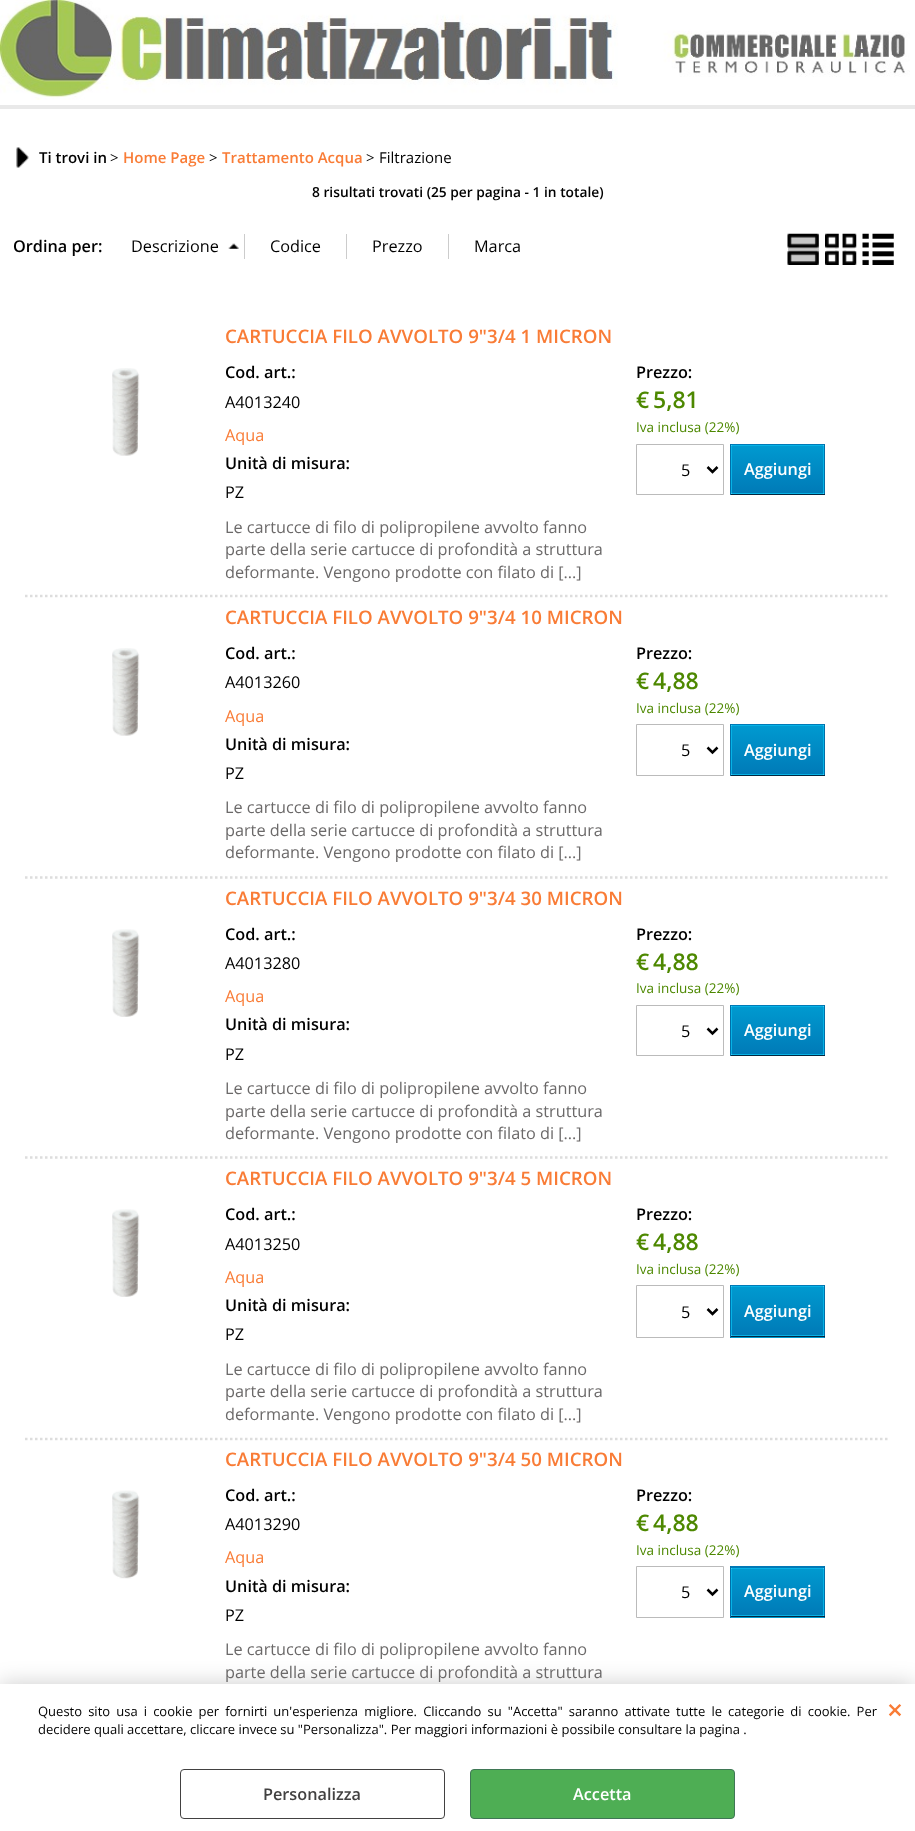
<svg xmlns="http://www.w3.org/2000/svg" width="915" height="1831">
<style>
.a{font:600 15px Open Sans;fill:#000}
.b{font:15px Open Sans;fill:#000}
.c{font:600 15px Open Sans;fill:#f97c36}
.d{font:600 13.75px Open Sans;fill:#000}
.e{font:600 16.25px Open Sans;fill:#000}
.f{font:16.25px Open Sans;fill:#000}
.g{font:600 18.7px Open Sans;fill:#f97c36}
.h{font:16.25px Open Sans;fill:#f97c36}
.i{font:600 23px Open Sans;fill:#4d8800}
.j{font:13.5px Open Sans;fill:#4d8800}
.k{font:600 16.25px Open Sans;fill:#fff}
.l{font:16.25px Open Sans;fill:#6b6969}
.m{font:13px Open Sans;fill:#000}
.n{font:600 28px Open Sans;fill:#f97c36}
.o{font:600 16.25px Open Sans;fill:#424141}
</style>
<defs>
<linearGradient id="g1" gradientUnits="userSpaceOnUse" x1="778" y1="396" x2="778" y2="445"><stop offset="0" stop-color="#009ad0"/><stop offset="1" stop-color="#007ab7"/></linearGradient>
<linearGradient id="g2" gradientUnits="userSpaceOnUse" x1="778" y1="445" x2="778" y2="494"><stop offset="0" stop-color="#009ad0"/><stop offset="1" stop-color="#007ab7"/></linearGradient>
<linearGradient id="g3" gradientUnits="userSpaceOnUse" x1="778" y1="675" x2="778" y2="725"><stop offset="0" stop-color="#009ad0"/><stop offset="1" stop-color="#007ab7"/></linearGradient>
<linearGradient id="g4" gradientUnits="userSpaceOnUse" x1="778" y1="725" x2="778" y2="775"><stop offset="0" stop-color="#009ad0"/><stop offset="1" stop-color="#007ab7"/></linearGradient>
<linearGradient id="g5" gradientUnits="userSpaceOnUse" x1="778" y1="958" x2="778" y2="1006"><stop offset="0" stop-color="#009ad0"/><stop offset="1" stop-color="#007ab7"/></linearGradient>
<linearGradient id="g6" gradientUnits="userSpaceOnUse" x1="778" y1="1006" x2="778" y2="1055"><stop offset="0" stop-color="#009ad0"/><stop offset="1" stop-color="#007ab7"/></linearGradient>
<linearGradient id="g7" gradientUnits="userSpaceOnUse" x1="778" y1="1236" x2="778" y2="1286"><stop offset="0" stop-color="#009ad0"/><stop offset="1" stop-color="#007ab7"/></linearGradient>
<linearGradient id="g8" gradientUnits="userSpaceOnUse" x1="778" y1="1286" x2="778" y2="1336"><stop offset="0" stop-color="#009ad0"/><stop offset="1" stop-color="#007ab7"/></linearGradient>
<linearGradient id="g9" gradientUnits="userSpaceOnUse" x1="778" y1="1519" x2="778" y2="1568"><stop offset="0" stop-color="#009ad0"/><stop offset="1" stop-color="#007ab7"/></linearGradient>
<linearGradient id="g10" gradientUnits="userSpaceOnUse" x1="778" y1="1568" x2="778" y2="1616"><stop offset="0" stop-color="#009ad0"/><stop offset="1" stop-color="#007ab7"/></linearGradient>
</defs>
<rect width="100%" height="100%" fill="#fff"/>
<image href="1.png" x="0" y="0" width="910" height="100"/>
<path fill="#e9e9e9" d="M0 105h915v4H0z"/>
<image href="2.png" x="16" y="147" width="13" height="21"/>
<image href="3.png" x="228" y="243" width="11" height="6"/>
<path fill="#ccc" d="M244 234h1v25H244z"/>
<path fill="#ccc" d="M346 234h1v25H346z"/>
<path fill="#ccc" d="M448 234h1v25H448z"/>
<path fill="#c6c6c6" d="M788 234h31v31H788z"/>
<image href="4.png" x="787" y="233" width="32" height="32"/>
<image href="5.png" x="825" y="233" width="32" height="32"/>
<image href="6.png" x="862" y="233" width="32" height="32"/>
<path fill="none" stroke="#ddd" stroke-width="2.5" stroke-dasharray="2.5 2.5" d="M25 596h865"/>
<image href="7.png" x="112" y="368" width="28" height="88"/>
<path fill="none" stroke="#bbb" d="M636.5 444.5h87v50H636.5z"/>
<path fill="none" stroke="#000" stroke-width="2.5" d="M707.5 467l5 5l5-5"/>
<path fill="url(#g1)" d="M730 444h95v1H730z"/>
<path fill="url(#g2)" d="M732 446h91v47H732z"/>
<path fill="none" stroke="#06b2e6" d="M731.5 445.5h92v48H731.5z"/>
<path fill="#006fa8" d="M824 444h1v51H824z"/>
<path fill="#012740" d="M730 494h95v1H730z"/>
<path fill="#006fa8" d="M730 444h1v51H730z"/>
<path fill="none" stroke="#ddd" stroke-width="2.5" stroke-dasharray="2.5 2.5" d="M25 877.5h865"/>
<image href="7.png" x="112" y="648" width="28" height="88"/>
<path fill="none" stroke="#bbb" d="M636.5 724.5h87v51H636.5z"/>
<path fill="none" stroke="#000" stroke-width="2.5" d="M707.5 747.5l5 5l5-5"/>
<path fill="url(#g3)" d="M730 724h95v1H730z"/>
<path fill="url(#g4)" d="M732 726h91v48H732z"/>
<path fill="none" stroke="#06b2e6" d="M731.5 725.5h92v49H731.5z"/>
<path fill="#006fa8" d="M824 724h1v52H824z"/>
<path fill="#012740" d="M730 775h95v1H730z"/>
<path fill="#006fa8" d="M730 724h1v52H730z"/>
<path fill="none" stroke="#ddd" stroke-width="2.5" stroke-dasharray="2.5 2.5" d="M25 1157.5h865"/>
<image href="8.png" x="112" y="929" width="28" height="88"/>
<path fill="none" stroke="#bbb" d="M636.5 1005.5h87v50H636.5z"/>
<path fill="none" stroke="#000" stroke-width="2.5" d="M707.5 1028.5l5 5l5-5"/>
<path fill="url(#g5)" d="M730 1005h95v1H730z"/>
<path fill="url(#g6)" d="M732 1007h91v47H732z"/>
<path fill="none" stroke="#06b2e6" d="M731.5 1006.5h92v48H731.5z"/>
<path fill="#006fa8" d="M824 1005h1v51H824z"/>
<path fill="#012740" d="M730 1055h95v1H730z"/>
<path fill="#006fa8" d="M730 1005h1v51H730z"/>
<path fill="none" stroke="#ddd" stroke-width="2.5" stroke-dasharray="2.5 2.5" d="M25 1439h865"/>
<image href="8.png" x="112" y="1209" width="28" height="88"/>
<path fill="none" stroke="#bbb" d="M636.5 1285.5h87v52H636.5z"/>
<path fill="none" stroke="#000" stroke-width="2.5" d="M707.5 1309l5 5l5-5"/>
<path fill="#009ad0" d="M731 1337h93v1H731z"/>
<path fill="url(#g7)" d="M730 1285h95v1H730z"/>
<path fill="url(#g8)" d="M732 1287h91v48H732z"/>
<path fill="none" stroke="#06b2e6" d="M731.5 1286.5h92v49H731.5z"/>
<path fill="#006fa8" d="M824 1285h1v53H824z"/>
<path fill="#012740" d="M730 1336h95v1H730z"/>
<path fill="#006fa8" d="M730 1285h1v53H730z"/>
<image href="9.png" x="112" y="1490" width="28" height="89"/>
<path fill="none" stroke="#bbb" d="M636.5 1566.5h87v51H636.5z"/>
<path fill="none" stroke="#000" stroke-width="2.5" d="M707.5 1589.5l5 5l5-5"/>
<path fill="#009ad0" d="M731 1617h93v1H731z"/>
<path fill="url(#g9)" d="M730 1567h95v1H730z"/>
<path fill="url(#g10)" d="M732 1569h91v46H732z"/>
<path fill="none" stroke="#06b2e6" d="M731.5 1568.5h92v47H731.5z"/>
<path fill="#0079b6" d="M730 1566h95v1H730z"/>
<path fill="#006fa8" d="M824 1566h1v52H824z"/>
<path fill="#012740" d="M730 1616h95v1H730z"/>
<path fill="#006fa8" d="M730 1566h1v52H730z"/>
<path fill="#00000033" filter="blur(11px)" d="M0 1684h915v147H0z"/>
<path fill="#fff" d="M0 1684h915v147H0z"/>
<rect fill="none" stroke="#424141" x="180.5" y="1769.5" width="264" height="49" rx="3.5"/>
<rect fill="#4eae54" stroke="#3f7755" x="470.5" y="1769.5" width="264" height="49" rx="3.5"/>
<text class="a" x="39" y="163">Ti trovi in</text>
<text class="b" x="110" y="163">&gt;</text>
<text class="c" x="123" y="163">Home Page</text>
<text class="b" x="209" y="163">&gt;</text>
<text class="c" x="222" y="163">Trattamento Acqua</text>
<text class="b" x="366" y="163">&gt;</text>
<text class="b" x="379" y="163">Filtrazione</text>
<text class="d" x="312" y="197">8 risultati trovati (25 per pagina - 1 in totale)</text>
<text class="e" x="13" y="252">Ordina per:</text>
<text class="f" x="131" y="252">Descrizione</text>
<text class="f" x="270" y="252">Codice</text>
<text class="f" x="372" y="252">Prezzo</text>
<text class="f" x="474" y="252">Marca</text>
<text class="g" x="225" y="343">CARTUCCIA FILO AVVOLTO 9"3/4 1 MICRON</text>
<text class="e" x="225" y="378">Cod. art.:</text>
<text class="f" x="225" y="408">A4013240</text>
<text class="h" x="225" y="441">Aqua</text>
<text class="e" x="225" y="469">Unità di misura:</text>
<text class="f" x="225" y="498">PZ</text>
<text class="e" x="636" y="378">Prezzo:</text>
<text class="i" x="636" y="408">€</text>
<text class="i" x="653" y="408">5,81</text>
<text class="j" x="636" y="432">Iva inclusa (22%)</text>
<text class="f" x="681" y="476">5</text>
<text class="k" x="744" y="475">Aggiungi</text>
<text class="l" x="225" y="533">Le cartucce di filo di polipropilene avvolto fanno</text>
<text class="l" x="225" y="555">parte della serie cartucce di profondità a struttura</text>
<text class="l" x="225" y="578">deformante. Vengono prodotte con filato di [...]</text>
<text class="g" x="225" y="624">CARTUCCIA FILO AVVOLTO 9"3/4 10 MICRON</text>
<text class="e" x="225" y="659">Cod. art.:</text>
<text class="f" x="225" y="688">A4013260</text>
<text class="h" x="225" y="722">Aqua</text>
<text class="e" x="225" y="750">Unità di misura:</text>
<text class="f" x="225" y="779">PZ</text>
<text class="e" x="636" y="659">Prezzo:</text>
<text class="i" x="636" y="689">€</text>
<text class="i" x="653" y="689">4,88</text>
<text class="j" x="636" y="713">Iva inclusa (22%)</text>
<text class="f" x="681" y="756">5</text>
<text class="k" x="744" y="756">Aggiungi</text>
<text class="l" x="225" y="813">Le cartucce di filo di polipropilene avvolto fanno</text>
<text class="l" x="225" y="836">parte della serie cartucce di profondità a struttura</text>
<text class="l" x="225" y="858">deformante. Vengono prodotte con filato di [...]</text>
<text class="g" x="225" y="905">CARTUCCIA FILO AVVOLTO 9"3/4 30 MICRON</text>
<text class="e" x="225" y="940">Cod. art.:</text>
<text class="f" x="225" y="969">A4013280</text>
<text class="h" x="225" y="1002">Aqua</text>
<text class="e" x="225" y="1030">Unità di misura:</text>
<text class="f" x="225" y="1060">PZ</text>
<text class="e" x="636" y="940">Prezzo:</text>
<text class="i" x="636" y="970">€</text>
<text class="i" x="653" y="970">4,88</text>
<text class="j" x="636" y="993">Iva inclusa (22%)</text>
<text class="f" x="681" y="1037">5</text>
<text class="k" x="744" y="1036">Aggiungi</text>
<text class="l" x="225" y="1094">Le cartucce di filo di polipropilene avvolto fanno</text>
<text class="l" x="225" y="1117">parte della serie cartucce di profondità a struttura</text>
<text class="l" x="225" y="1139">deformante. Vengono prodotte con filato di [...]</text>
<text class="g" x="225" y="1185">CARTUCCIA FILO AVVOLTO 9"3/4 5 MICRON</text>
<text class="e" x="225" y="1220">Cod. art.:</text>
<text class="f" x="225" y="1250">A4013250</text>
<text class="h" x="225" y="1283">Aqua</text>
<text class="e" x="225" y="1311">Unità di misura:</text>
<text class="f" x="225" y="1340">PZ</text>
<text class="e" x="636" y="1220">Prezzo:</text>
<text class="i" x="636" y="1250">€</text>
<text class="i" x="653" y="1250">4,88</text>
<text class="j" x="636" y="1274">Iva inclusa (22%)</text>
<text class="f" x="681" y="1318">5</text>
<text class="k" x="744" y="1317">Aggiungi</text>
<text class="l" x="225" y="1375">Le cartucce di filo di polipropilene avvolto fanno</text>
<text class="l" x="225" y="1397">parte della serie cartucce di profondità a struttura</text>
<text class="l" x="225" y="1420">deformante. Vengono prodotte con filato di [...]</text>
<text class="g" x="225" y="1466">CARTUCCIA FILO AVVOLTO 9"3/4 50 MICRON</text>
<text class="e" x="225" y="1501">Cod. art.:</text>
<text class="f" x="225" y="1530">A4013290</text>
<text class="h" x="225" y="1563">Aqua</text>
<text class="e" x="225" y="1592">Unità di misura:</text>
<text class="f" x="225" y="1621">PZ</text>
<text class="e" x="636" y="1501">Prezzo:</text>
<text class="i" x="636" y="1531">€</text>
<text class="i" x="653" y="1531">4,88</text>
<text class="j" x="636" y="1555">Iva inclusa (22%)</text>
<text class="f" x="681" y="1598">5</text>
<text class="k" x="744" y="1597">Aggiungi</text>
<text class="l" x="225" y="1655">Le cartucce di filo di polipropilene avvolto fanno</text>
<text class="l" x="225" y="1678">parte della serie cartucce di profondità a struttura</text>
<text class="m" x="38" y="1716" word-spacing="2.75">Questo sito usa i cookie per fornirti un'esperienza migliore. Cliccando su "Accetta" saranno attivate tutte le categorie di cookie. Per</text>
<text class="m" x="38" y="1734">decidere quali accettare, cliccare invece su "Personalizza". Per maggiori informazioni è possibile consultare la pagina .</text>
<text class="n" x="887" y="1720">×</text>
<text class="o" x="263" y="1800">Personalizza</text>
<text class="k" x="573" y="1800">Accetta</text>
</svg>
